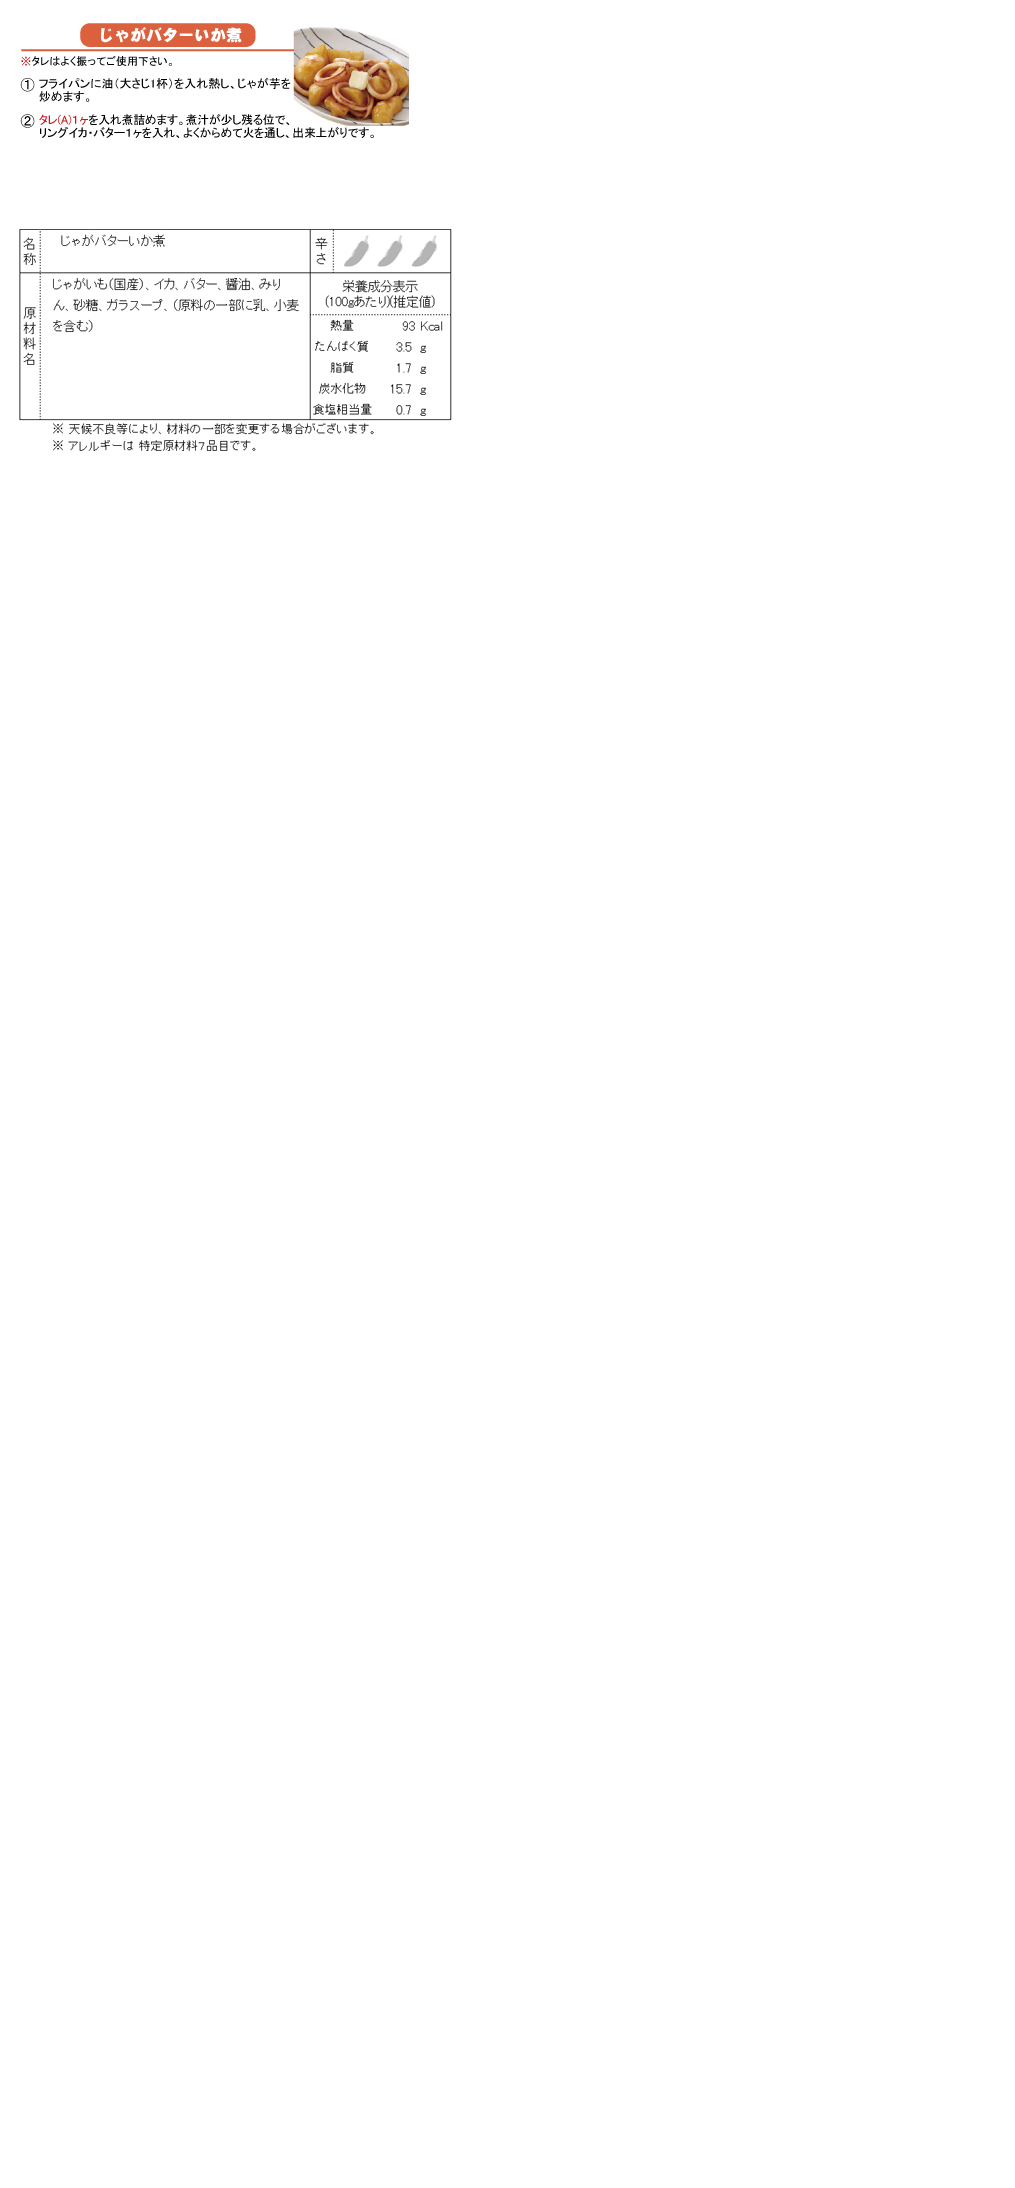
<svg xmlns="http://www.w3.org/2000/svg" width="1015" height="2188">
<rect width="100%" height="100%" fill="#fff"/>
<image href="1.png" x="20" y="17" width="392" height="121"/>
<image href="2.png" x="19" y="229" width="433" height="222"/>
</svg>
